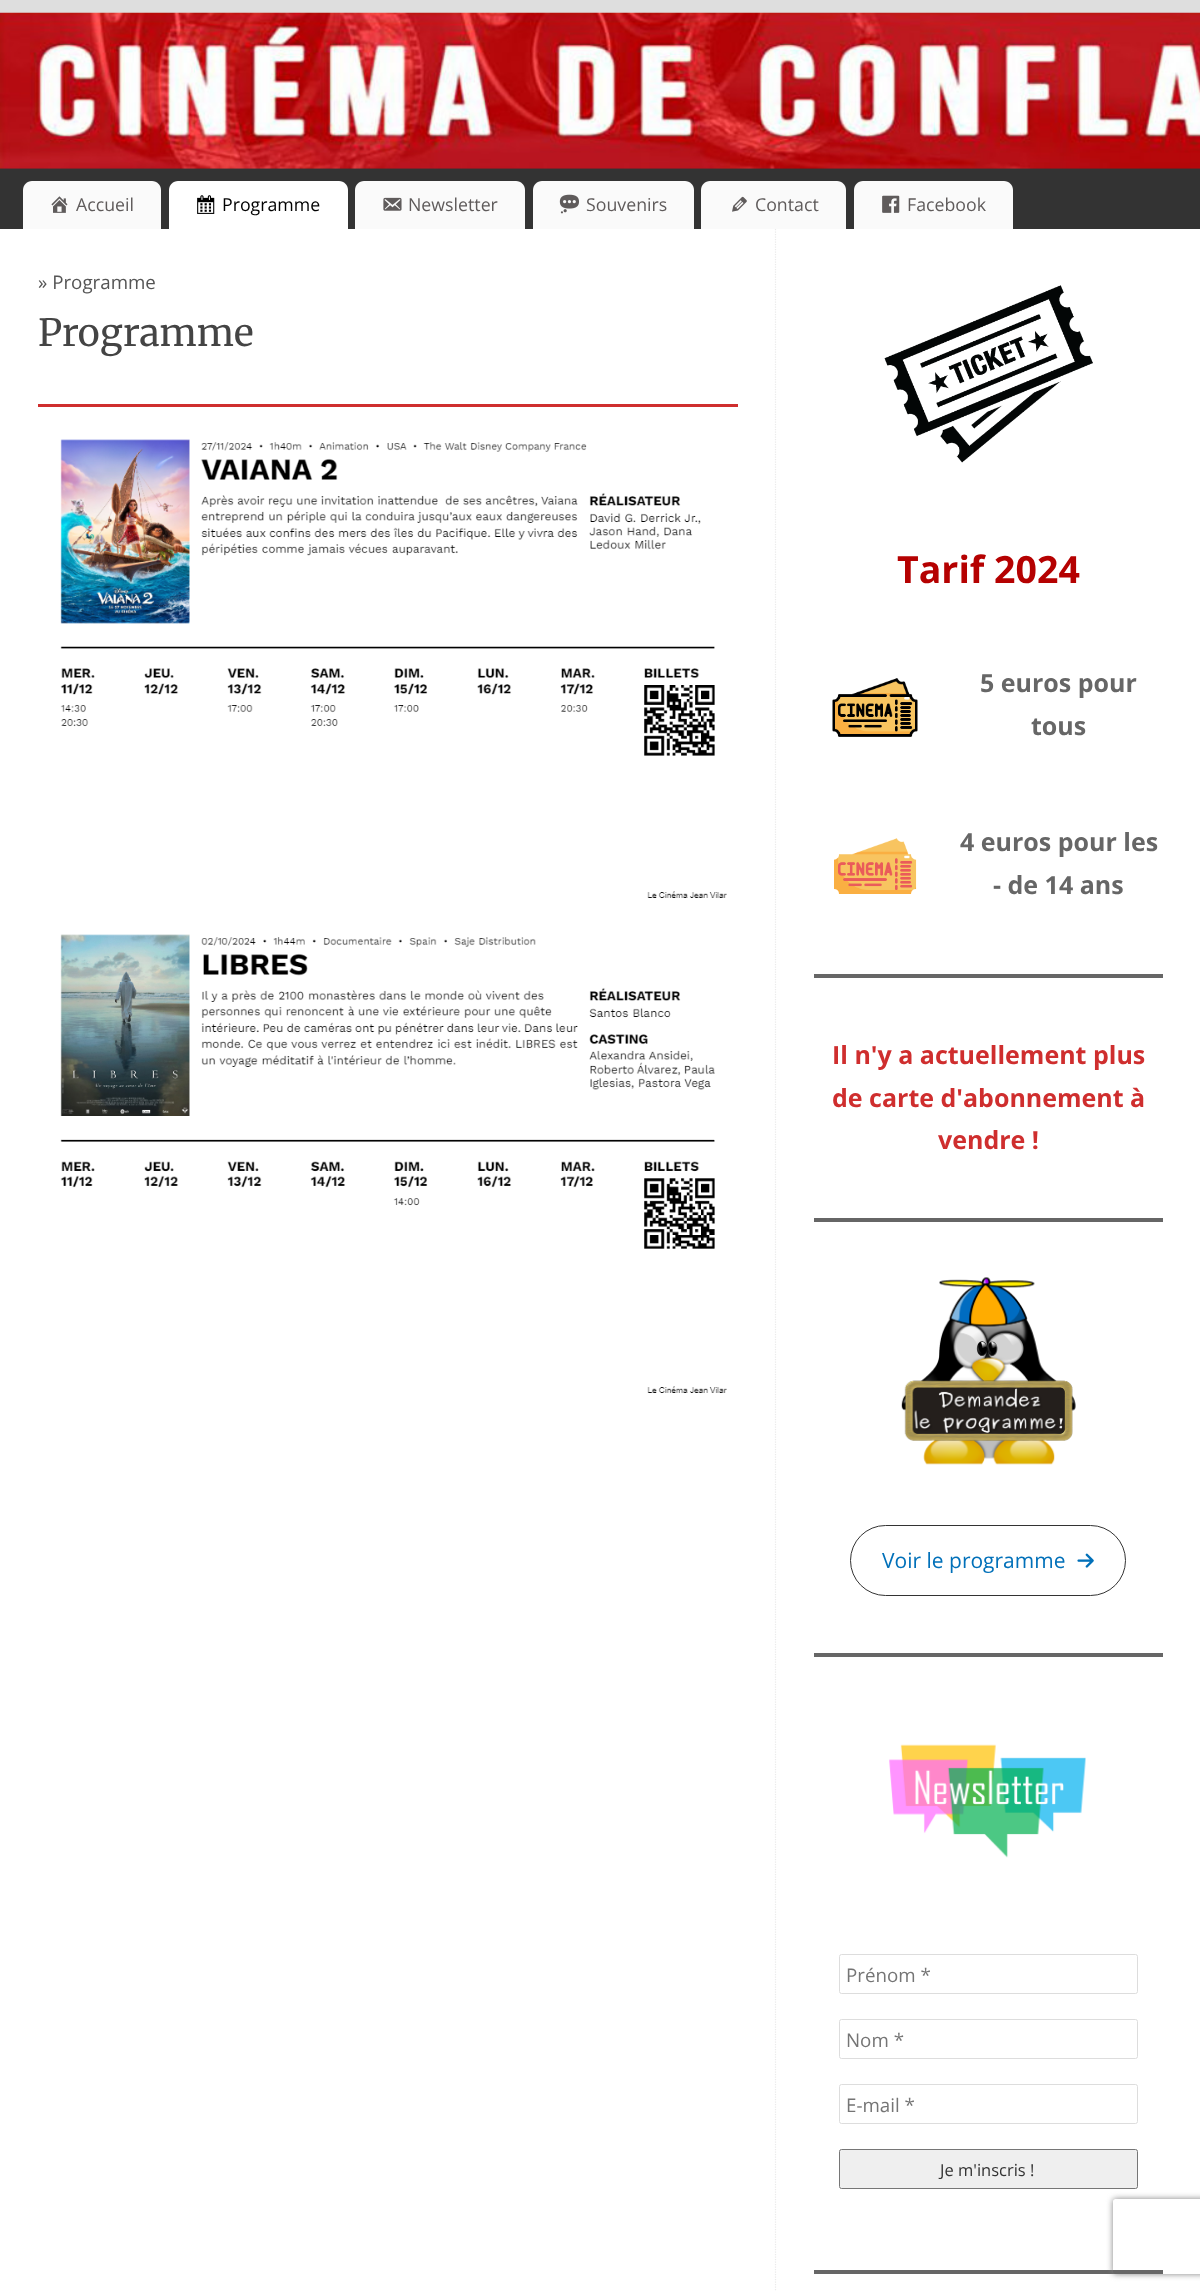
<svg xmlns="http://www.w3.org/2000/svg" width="1200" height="2291">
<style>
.a{font:17.75px Open Sans;fill:#5f5b5b}
.b{font:17.75px Open Sans;fill:#000}
.c{font:18.75px Open Sans;fill:#555}
.d{font:37.5px Merriweather;fill:#444}
.e{font:bold 37.5px Open Sans;fill:#b50101}
.f{font:bold 25px Open Sans;fill:#666}
.g{font:bold 25px Open Sans;fill:#cf2e2e}
.h{font:21px Open Sans;fill:#0170b9}
.i{font:18.75px Open Sans;fill:#757575}
.j{font:16.5px Open Sans;fill:#333}
</style>
<defs>
<clipPath id="clip1"><path d="M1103 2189h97v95h-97zm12.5 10h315c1.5 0 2.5 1 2.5 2.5v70c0 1.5-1 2.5-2.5 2.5h-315c-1.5 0-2.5-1-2.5-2.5v-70c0-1.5 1-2.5 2.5-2.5z" clip-rule="evenodd"/></clipPath>
</defs>
<rect width="100%" height="100%" fill="#dedede"/>
<path fill="#333" d="M0 168h1200v61H0z"/>
<image href="1.png" x="0" y="12" width="1200" height="157"/>
<path fill="#fafafa" d="M32 181h120c5 0 9 4 9 9v39h-138v-39c0-5 4-9 9-9z"/>
<image href="2.png" x="51" y="196" width="17" height="17"/>
<path fill="#fff" d="M178 181h161c5 0 9 4 9 9v39h-179v-39c0-5 4-9 9-9z"/>
<image href="3.png" x="197" y="195" width="18" height="19"/>
<path fill="#fafafa" d="M364 181h152c5 0 9 4 9 9v39h-170v-39c0-5 4-9 9-9z"/>
<image href="4.png" x="383" y="197" width="19" height="14"/>
<path fill="#fafafa" d="M542 181h143c5 0 9 4 9 9v39h-161v-39c0-5 4-9 9-9z"/>
<image href="5.png" x="559" y="194" width="20" height="20"/>
<path fill="#fafafa" d="M710 181h127c5 0 9 4 9 9v39h-145v-39c0-5 4-9 9-9z"/>
<image href="6.png" x="732" y="196" width="15" height="16"/>
<path fill="#fafafa" d="M863 181h141c5 0 9 4 9 9v39h-159v-39c0-5 4-9 9-9z"/>
<image href="7.png" x="882" y="195" width="18" height="18"/>
<path fill="#fff" d="M0 229h1200v2062H0z"/>
<path fill="#cf2e2e" d="M38 404h700v3H38z"/>
<image href="8.png" x="60" y="439" width="667" height="459"/>
<image href="9.png" x="60" y="934" width="667" height="459"/>
<path fill="none" stroke="#eaeaea" stroke-width="1.2" stroke-dasharray="1.25 1.25" d="M775.5 229v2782"/>
<image href="10.png" x="884" y="285" width="209" height="178"/>
<image href="11.png" x="832" y="678" width="86" height="59"/>
<image href="12.png" x="834" y="838" width="83" height="56"/>
<path fill="#666" d="M814 974h349v4H814z"/>
<path fill="#666" d="M814 1218h349v4H814z"/>
<image href="13.png" x="901" y="1277" width="175" height="188"/>
<rect fill="none" stroke="#333" x="850.5" y="1525.5" width="275" height="70" rx="35"/>
<image href="14.png" x="1077" y="1553" width="17" height="15"/>
<path fill="#666" d="M814 1653h349v4H814z"/>
<image href="15.png" x="889" y="1744" width="197" height="114"/>
<rect fill="none" stroke="#ddd" x="839.5" y="1954.5" width="298" height="39" rx="2"/>
<rect fill="none" stroke="#ddd" x="839.5" y="2019.5" width="298" height="39" rx="2"/>
<rect fill="none" stroke="#ddd" x="839.5" y="2084.5" width="298" height="39" rx="2"/>
<rect fill="#efefef" stroke="#767676" x="839.5" y="2149.5" width="298" height="39" rx="2"/>
<path fill="#666" d="M814 2270h349v4H814z"/>
<g clip-path="url(#clip1)">
<rect fill="#808080" filter="blur(3px)" x="1113" y="2199" width="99" height="75" rx="2.5"/>
</g>
<text class="a" x="76" y="211">Accueil</text>
<text class="b" x="222" y="211">Programme</text>
<text class="a" x="408" y="211">Newsletter</text>
<text class="a" x="586" y="211">Souvenirs</text>
<text class="a" x="755" y="211">Contact</text>
<text class="a" x="907" y="211">Facebook</text>
<text class="c" x="38" y="289">» Programme</text>
<text class="d" x="38" y="346">Programme</text>
<text class="e" x="897" y="583">Tarif 2024</text>
<text class="f" x="980" y="692">5 euros pour</text>
<text class="f" x="1031" y="735">tous</text>
<text class="f" x="960" y="851">4 euros pour les</text>
<text class="f" x="993" y="894">- de 14 ans</text>
<text class="g" x="832" y="1064">Il n'y a actuellement plus</text>
<text class="g" x="832" y="1107">de carte d'abonnement à</text>
<text class="g" x="938" y="1149">vendre !</text>
<text class="h" x="882" y="1568">Voir le programme</text>
<text class="i" x="846" y="1982">Prénom *</text>
<text class="i" x="846" y="2047">Nom *</text>
<text class="i" x="846" y="2112">E-mail *</text>
<text class="j" x="940" y="2176">Je m'inscris !</text>
</svg>
